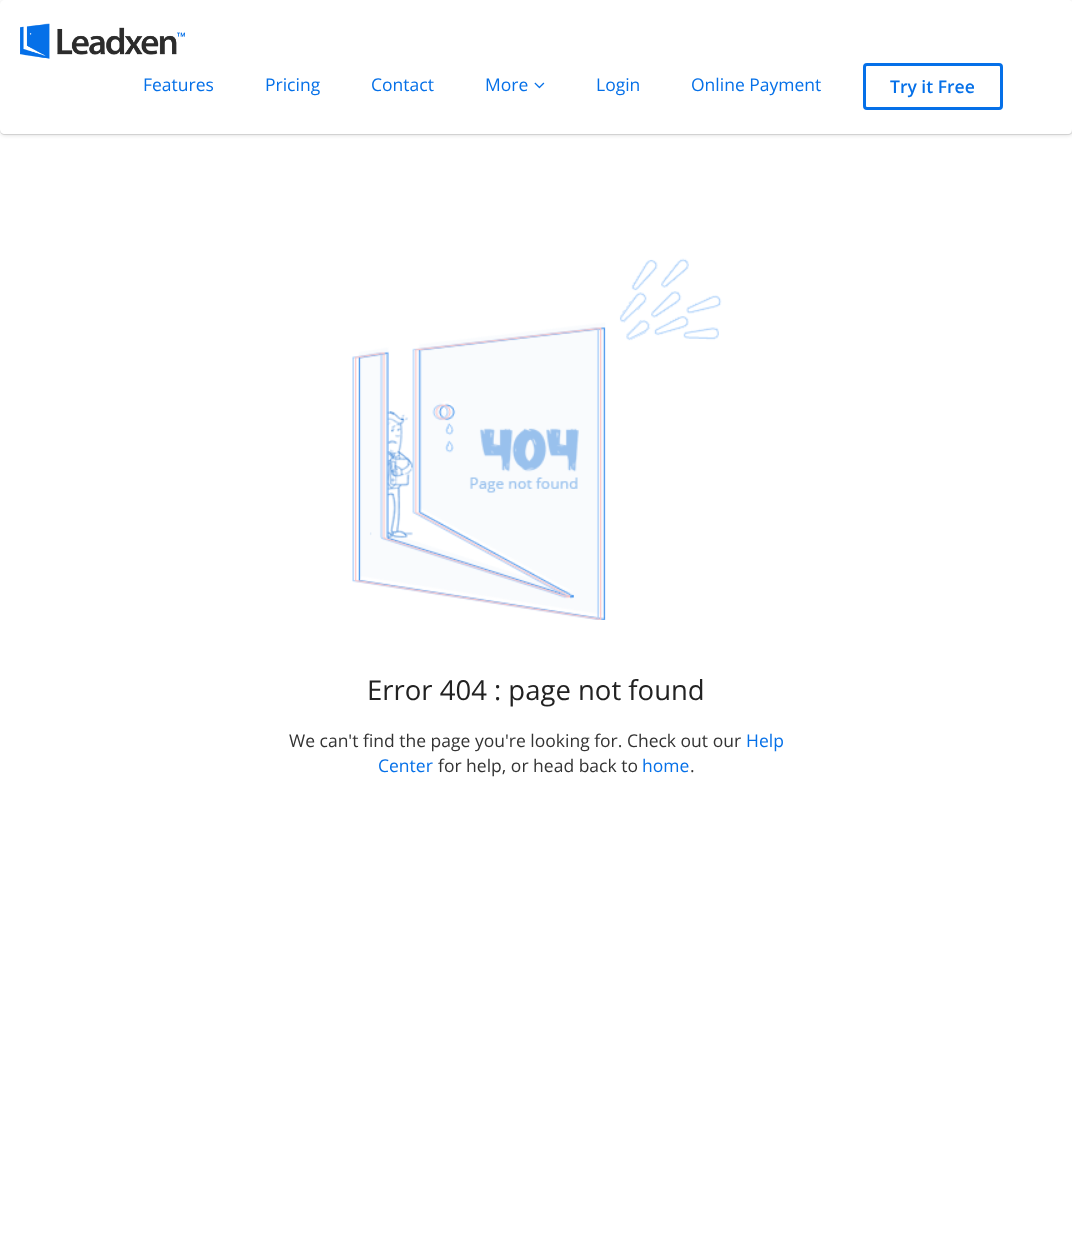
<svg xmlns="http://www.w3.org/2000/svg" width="1072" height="1257">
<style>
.a{font:17.5px Open Sans;fill:#0570e8}
.b{font:600 17.5px Open Sans;fill:#0570e8}
.c{font:27.5px Open Sans;fill:#222}
.d{font:17.5px Open Sans;fill:#333}
</style>
<defs>
<clipPath id="clip1"><path d="M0 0h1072v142h-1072zm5 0h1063c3 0 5 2 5 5v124c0 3-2 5-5 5h-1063c-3 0-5-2-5-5v-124c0-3 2-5 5-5z" clip-rule="evenodd"/></clipPath>
</defs>
<rect width="100%" height="100%" fill="#fff"/>
<path fill="#e6e6e6" d="M0 129v1c0 3 2 5 5 5h1063c3 0 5-2 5-5v-124l-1-3v126c0 3-2 5-4 5h-1063c-3 0-5-2-5-5z"/>
<g clip-path="url(#clip1)">
<rect fill="#00000026" filter="blur(2px)" y="1" width="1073" height="134" rx="5"/>
</g>
<image href="1.png" x="20" y="23" width="165" height="36"/>
<image href="2.png" x="534" y="82" width="11" height="7"/>
<rect fill="none" stroke="#0570e8" stroke-width="3" x="864.5" y="64.5" width="137" height="44" rx="2.5"/>
<image href="3.png" x="352" y="258" width="370" height="362"/>
<text class="a" x="143" y="91">Features</text>
<text class="a" x="265" y="91">Pricing</text>
<text class="a" x="371" y="91">Contact</text>
<text class="a" x="485" y="91">More</text>
<text class="a" x="596" y="91">Login</text>
<text class="a" x="691" y="91">Online Payment</text>
<text class="b" x="890" y="93">Try it Free</text>
<text class="c" x="367" y="700">Error 404 : page not found</text>
<text class="d" x="289" y="747">We can't find the page you're looking for. Check out our</text>
<text class="a" x="746" y="747">Help</text>
<text class="a" x="378" y="772">Center</text>
<text class="d" x="438" y="772">for help, or head back to</text>
<text class="a" x="642" y="772">home</text>
<text class="d" x="690" y="772">.</text>
</svg>
